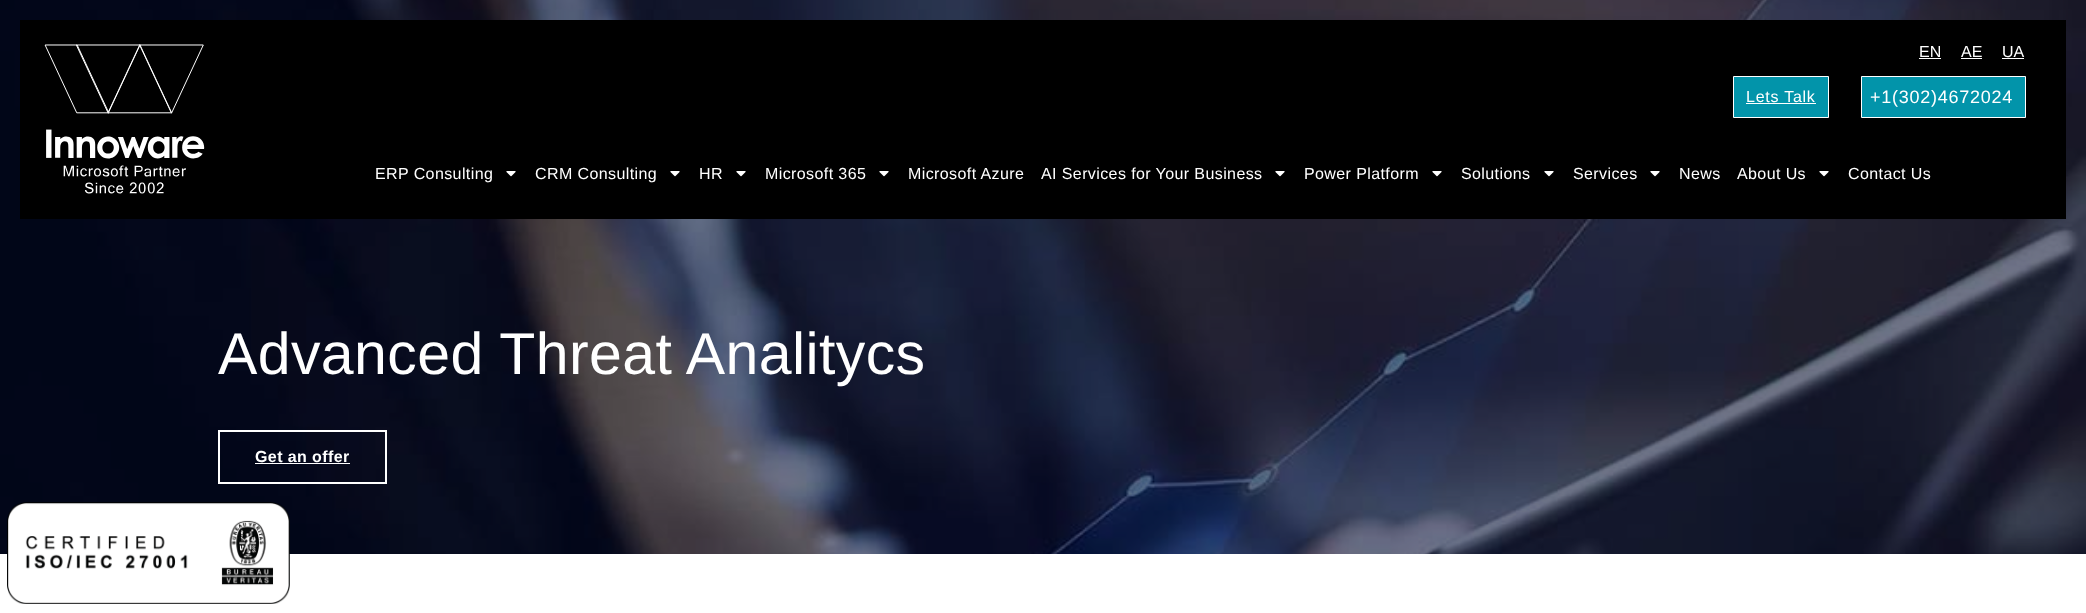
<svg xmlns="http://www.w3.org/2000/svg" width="2086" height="613">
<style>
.a{font:16px Liberation Sans;fill:#fff}
.b{font:16px Liberation Sans;letter-spacing:0.75px;fill:#fff}
.c{font:18px Liberation Sans;letter-spacing:0.75px;fill:#fff}
.d{font:16px Liberation Sans;letter-spacing:0.4px;fill:#fff}
.e{font:59px Liberation Sans;letter-spacing:0.4px;fill:#fff}
.f{font:bold 16px Liberation Sans;letter-spacing:0.4px;fill:#fff}
</style>
<rect width="100%" height="100%" fill="#fff"/>
<image href="1.png" x="0" y="0" width="2086" height="554"/>
<path fill="#000" d="M20 20h2046v199H20z"/>
<image href="2.png" x="44" y="44" width="161" height="150"/>
<path fill="#fff" d="M1919 58h22v1H1919z"/>
<path fill="#fff" d="M1961 58h21v1H1961z"/>
<path fill="#fff" d="M2002 58h22v1H2002z"/>
<path fill="#0294aa" stroke="#fff" d="M1733.5 76.5h95v41H1733.5z"/>
<path fill="#fff" d="M1746 103h70v1H1746z"/>
<path fill="#0294aa" stroke="#fff" d="M1861.5 76.5h164v41H1861.5z"/>
<image href="3.png" x="506" y="171" width="10" height="6"/>
<image href="3.png" x="670" y="171" width="10" height="6"/>
<image href="3.png" x="736" y="171" width="10" height="6"/>
<image href="3.png" x="879" y="171" width="10" height="6"/>
<image href="3.png" x="1275" y="171" width="10" height="6"/>
<image href="3.png" x="1432" y="171" width="10" height="6"/>
<image href="3.png" x="1544" y="171" width="10" height="6"/>
<image href="3.png" x="1650" y="171" width="10" height="6"/>
<image href="3.png" x="1819" y="171" width="10" height="6"/>
<path fill="none" stroke="#fff" stroke-width="2" d="M219 431h167v52H219z"/>
<path fill="#fff" d="M255 463h95v1H255z"/>
<image href="4.png" x="7" y="502" width="283" height="102"/>
<text class="a" x="1919" y="57">EN</text>
<text class="a" x="1961" y="57">AE</text>
<text class="a" x="2002" y="57">UA</text>
<text class="b" x="1746" y="102">Lets Talk</text>
<text class="c" x="1870" y="103">+1(302)4672024</text>
<text class="d" x="375" y="179">ERP Consulting</text>
<text class="d" x="535" y="179">CRM Consulting</text>
<text class="d" x="699" y="179">HR</text>
<text class="d" x="765" y="179">Microsoft 365</text>
<text class="d" x="908" y="179">Microsoft Azure</text>
<text class="d" x="1041" y="179">AI Services for Your Business</text>
<text class="d" x="1304" y="179">Power Platform</text>
<text class="d" x="1461" y="179">Solutions</text>
<text class="d" x="1573" y="179">Services</text>
<text class="d" x="1679" y="179">News</text>
<text class="d" x="1737" y="179">About Us</text>
<text class="d" x="1848" y="179">Contact Us</text>
<text class="e" x="218" y="374">Advanced Threat Analitycs</text>
<text class="f" x="255" y="462">Get an offer</text>
</svg>
